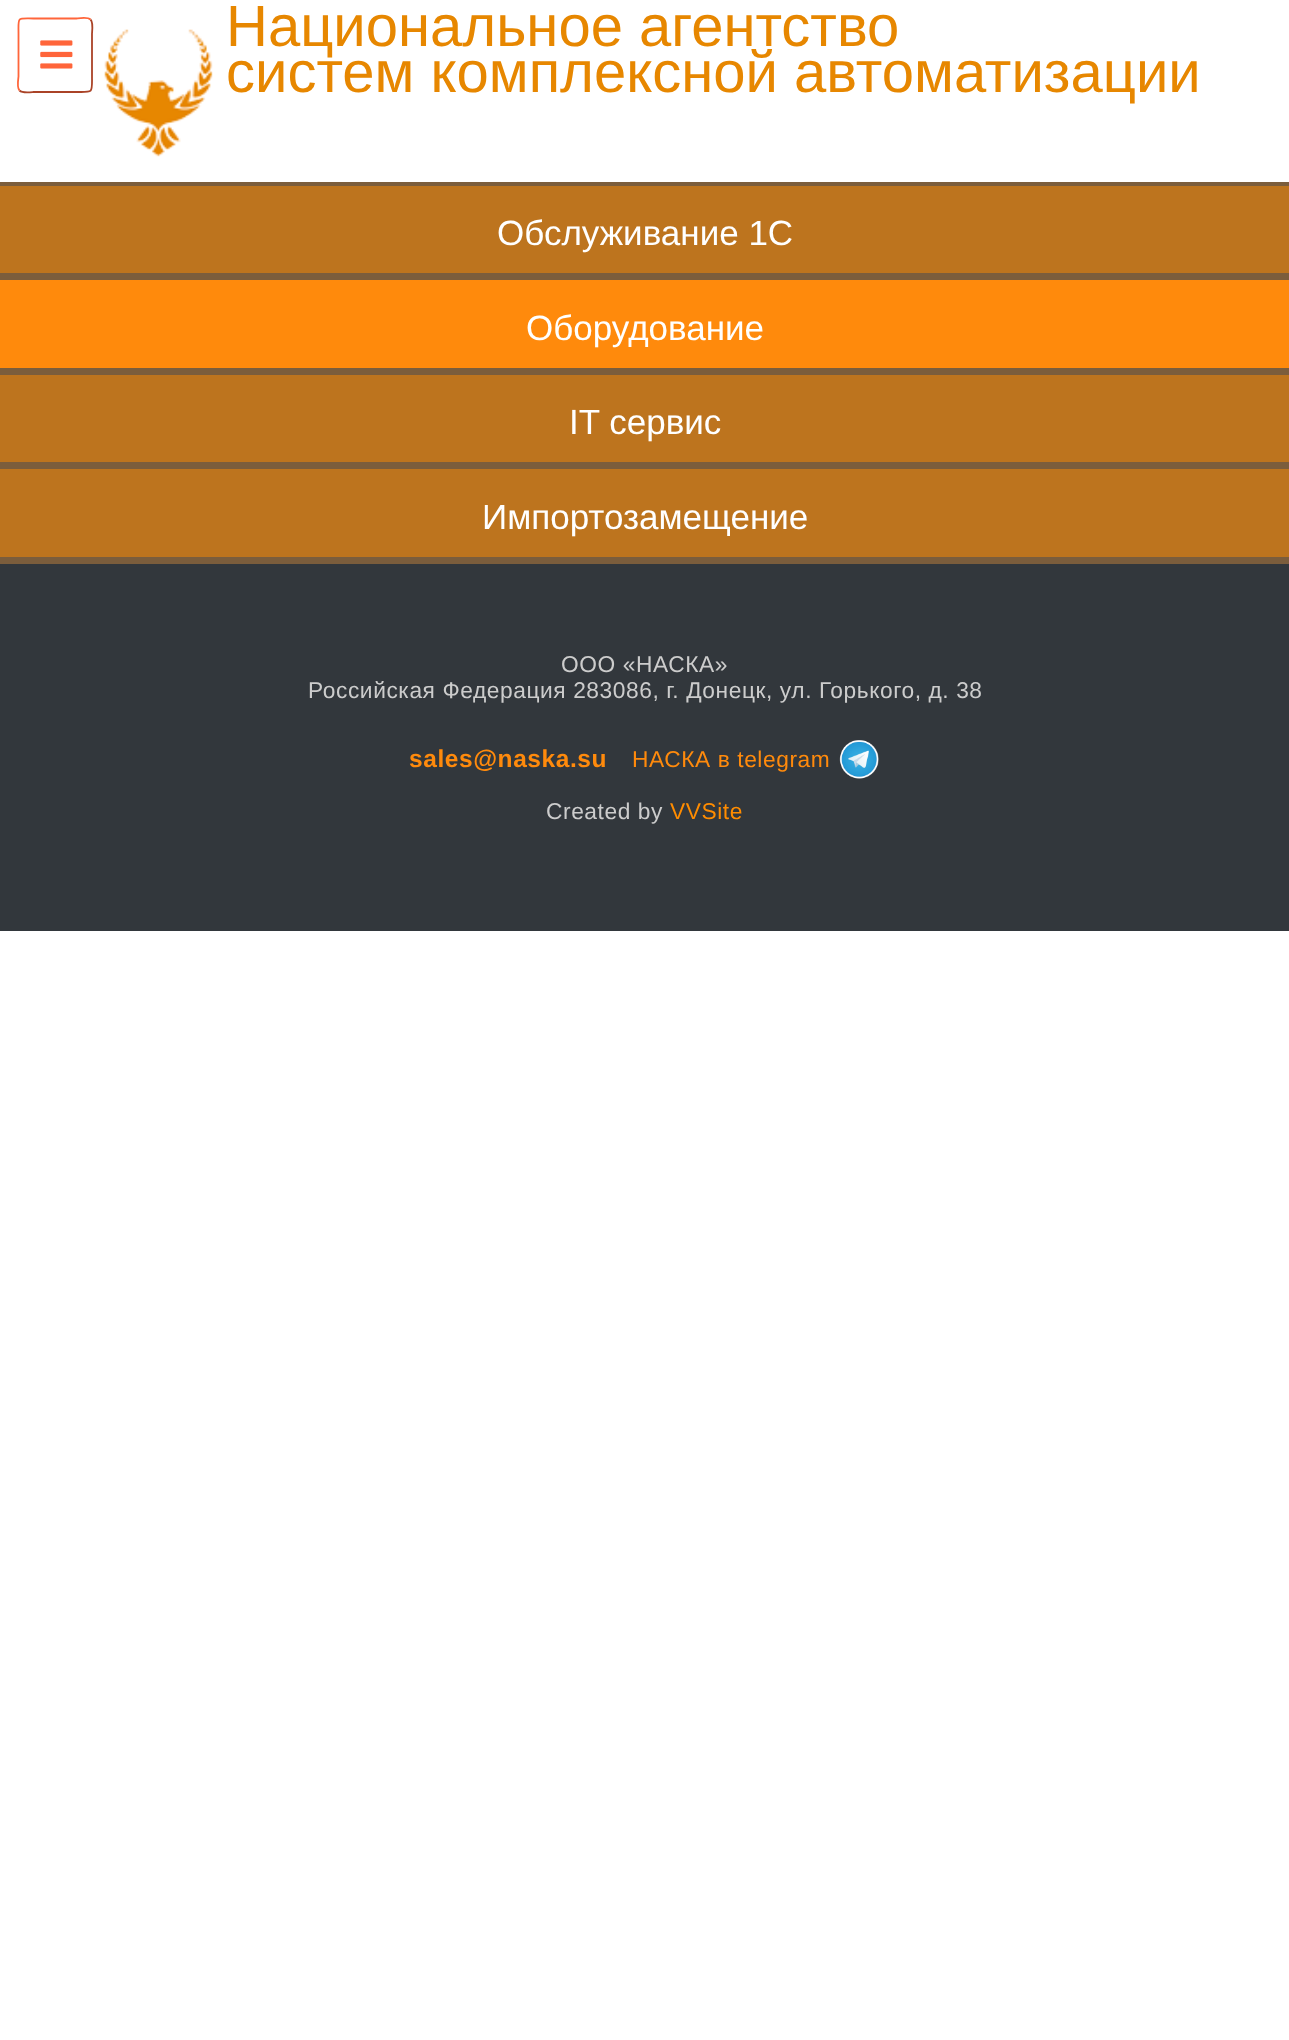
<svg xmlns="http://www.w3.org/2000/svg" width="1289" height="2040">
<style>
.a{font:58px Liberation Sans;fill:#e78700}
.b{font:35px Liberation Sans;fill:#fff}
.c{font:22.75px Liberation Sans;letter-spacing:0.57px;fill:#ccc}
.d{font:bold 24.5px Liberation Sans;letter-spacing:0.57px;fill:#ff8a0c}
.e{font:22.75px Liberation Sans;letter-spacing:0.57px;fill:#ff8a0c}
.f{font:22.75px Liberation Sans;letter-spacing:0.57px;fill:#ff8c00}
</style>
<rect width="100%" height="100%" fill="#fff"/>
<path fill="none" stroke="#aa4327" stroke-width="1.8" d="M90.5 19.5c3 3 1.5 13 1.5 14v43c0 17 1.5 15.5-15.5 15.5h-43c-1 0-11 1.5-14-1.5"/>
<path fill="none" stroke="#ff653a" stroke-width="1.8" d="M19.5 90.5c-3-3-1-13-1-14v-43c0-17-2-15 15-15h43c1 0 11-2 14 1"/>
<image href="1.png" x="40" y="40" width="33" height="29"/>
<image href="2.png" x="104" y="29" width="109" height="128"/>
<path fill="#7b5d3c" d="M0 182h1289v382H0z"/>
<path fill="#bd741e" d="M0 186h1289v87H0z"/>
<path fill="#ff8a0c" d="M0 280h1289v88H0z"/>
<path fill="#bd741e" d="M0 375h1289v87H0z"/>
<path fill="#bd741e" d="M0 469h1289v88H0z"/>
<path fill="#32373c" d="M0 564h1289v367H0z"/>
<image href="3.png" x="839" y="740" width="40" height="39"/>
<text class="a" x="226" y="46">Национальное агентство</text>
<text class="a" x="226" y="92">систем комплексной автоматизации</text>
<text class="b" x="497" y="245">Обслуживание 1С</text>
<text class="b" x="526" y="340">Оборудование</text>
<text class="b" x="569" y="434">IT сервис</text>
<text class="b" x="482" y="529">Импортозамещение</text>
<text class="c" x="561" y="672">ООО «НАСКА»</text>
<text class="c" x="308" y="698">Российская Федерация 283086, г. Донецк, ул. Горького, д. 38</text>
<text class="d" x="409" y="767">sales@naska.su</text>
<text class="e" x="632" y="767">НАСКА в telegram</text>
<text class="c" x="546" y="819">Created by</text>
<text class="f" x="670" y="819">VVSite</text>
</svg>
